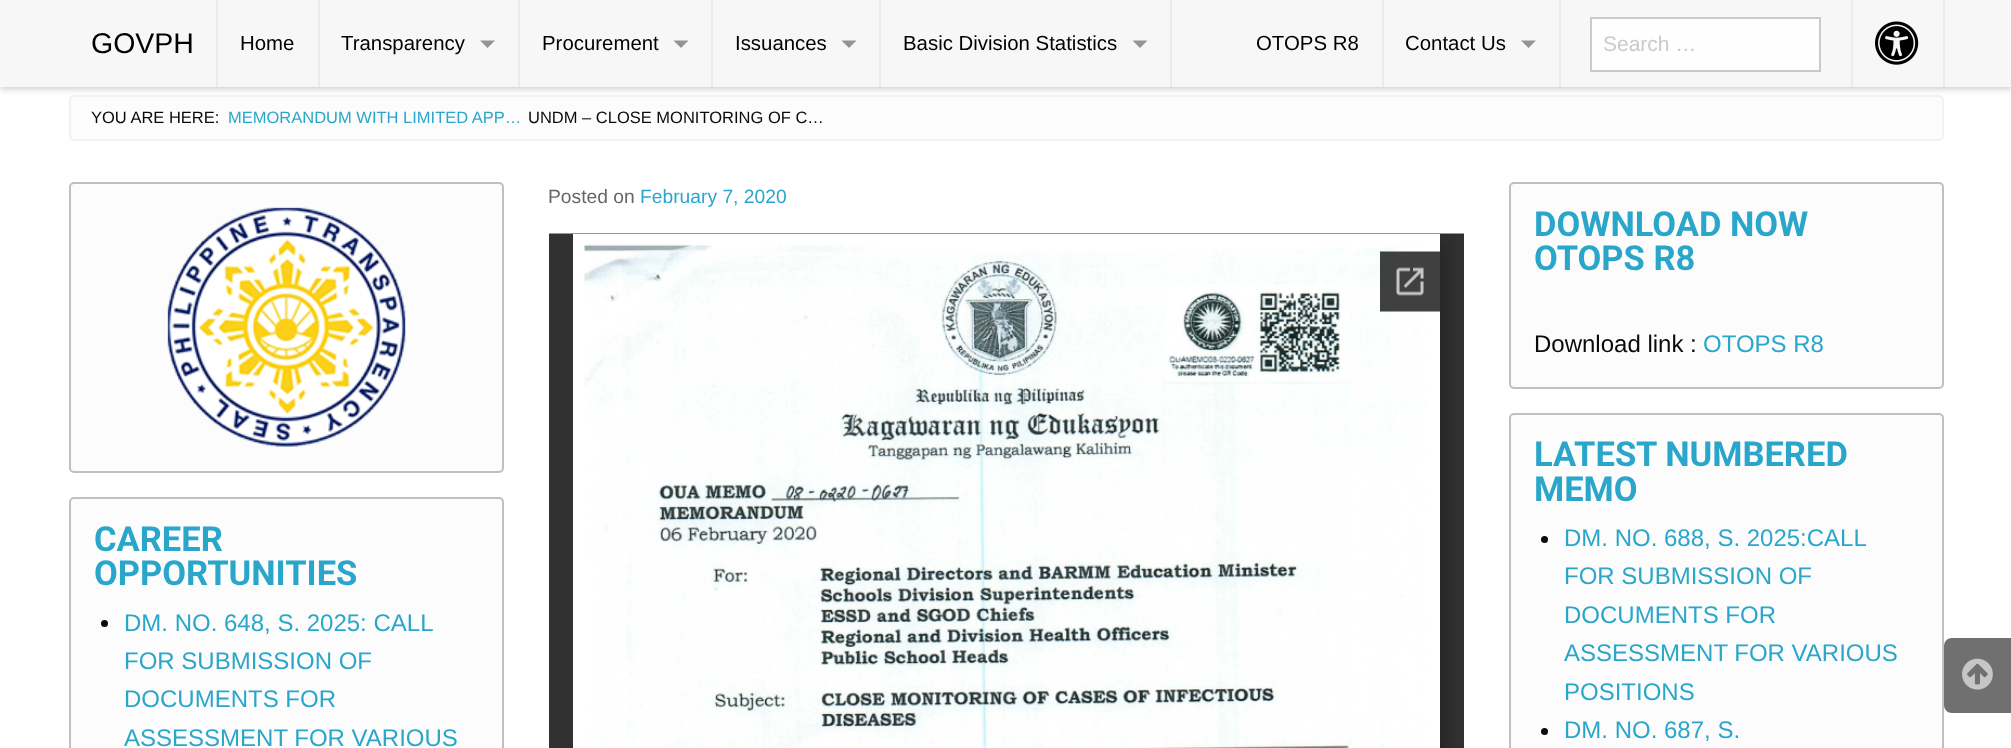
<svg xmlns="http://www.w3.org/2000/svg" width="2011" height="748">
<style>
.a{font:28.5px Liberation Sans;fill:#000}
.b{font:20.4px Liberation Sans;fill:#000}
.c{font:21px Liberation Sans;fill:#cacaca}
.d{font:16.5px Liberation Sans;fill:#0a0a0a}
.e{font:16.5px Liberation Sans;fill:#2ba6cb}
.f{font:19.25px Liberation Sans;fill:#666}
.g{font:19.25px Liberation Sans;fill:#2ba6cb}
.h{font:bold 34.5px Roboto;fill:#2ba6cb}
.i{font:24px Liberation Sans;fill:#2ba6cb}
.j{font:24px Liberation Sans;fill:#0a0a0a}
</style>
<rect width="100%" height="100%" fill="#fff"/>
<rect fill="#fcfcfc" stroke="#f2f2f2" stroke-width="2" x="70" y="96" width="1873" height="44" rx="4"/>
<path fill="#00000033" filter="blur(3px)" d="M0 2h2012v87H0z"/>
<path fill="#f7f7f7" d="M0 0h2011v87H0z"/>
<path fill="#ebebeb" d="M216 0h2v87H216z"/>
<path fill="#ebebeb" d="M318 0h2v87H318z"/>
<path fill="#ebebeb" d="M518 0h2v87H518z"/>
<path fill="#949494" d="M480 40.5h15l-7.5 7.5z"/>
<path fill="#ebebeb" d="M711 0h2v87H711z"/>
<path fill="#949494" d="M673.5 40.5h15l-7.5 7.5z"/>
<path fill="#ebebeb" d="M879 0h2v87H879z"/>
<path fill="#949494" d="M841.5 40.5h15l-7.5 7.5z"/>
<path fill="#ebebeb" d="M1170 0h2v87H1170z"/>
<path fill="#949494" d="M1132.5 40.5h15l-7.5 7.5z"/>
<path fill="#ebebeb" d="M1382 0h2v87H1382z"/>
<path fill="#ebebeb" d="M1559 0h2v87H1559z"/>
<path fill="#949494" d="M1521 40.5h15l-7.5 7.5z"/>
<path fill="#ebebeb" d="M1851 0h2v87H1851z"/>
<path fill="#fefefe" stroke="#cacaca" stroke-width="2" d="M1591 18h229v53H1591z"/>
<path fill="#ebebeb" d="M1943 0h2v87H1943z"/>
<image href="1.png" x="1875" y="21" width="44" height="44"/>
<image href="2.png" x="549" y="233" width="915" height="515"/>
<rect fill="#fcfcfc" stroke="#c0c0c0" stroke-width="2" x="70" y="183" width="433" height="289" rx="4"/>
<image href="3.png" x="167" y="207" width="239" height="240"/>
<rect fill="#fcfcfc" stroke="#c0c0c0" stroke-width="2" x="70" y="498" width="433" height="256" rx="4"/>
<circle fill="#0a0a0a" cx="104.5" cy="623.5" r="3.5"/>
<rect fill="#fcfcfc" stroke="#c0c0c0" stroke-width="2" x="1510" y="183" width="433" height="205" rx="4"/>
<rect fill="#fcfcfc" stroke="#c0c0c0" stroke-width="2" x="1510" y="414" width="433" height="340" rx="4"/>
<circle fill="#0a0a0a" cx="1544.5" cy="539.5" r="3.5"/>
<circle fill="#0a0a0a" cx="1544.5" cy="731.5" r="3.5"/>
<path fill="#707070" d="M1952 638h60v75h-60c-4.5 0-8-3.5-8-8v-59c0-4.5 3.5-8 8-8z"/>
<image href="4.png" x="1962" y="658" width="31" height="32"/>
<text class="a" x="91" y="53">GOVPH</text>
<text class="b" x="240" y="50">Home</text>
<text class="b" x="341" y="50">Transparency</text>
<text class="b" x="542" y="50">Procurement</text>
<text class="b" x="735" y="50">Issuances</text>
<text class="b" x="903" y="50">Basic Division Statistics</text>
<text class="b" x="1256" y="50">OTOPS R8</text>
<text class="b" x="1405" y="50">Contact Us</text>
<text class="c" x="1603" y="51">Search …</text>
<text class="d" x="91" y="123">YOU ARE HERE:</text>
<text class="e" x="228" y="123">MEMORANDUM WITH LIMITED APP…</text>
<text class="d" x="528" y="123">UNDM – CLOSE MONITORING OF C…</text>
<text class="f" x="548" y="203">Posted on</text>
<text class="g" x="640" y="203">February 7, 2020</text>
<text class="h" x="94" y="551">CAREER</text>
<text class="h" x="94" y="585">OPPORTUNITIES</text>
<text class="i" x="124" y="631">DM. NO. 648, S. 2025: CALL</text>
<text class="i" x="124" y="669">FOR SUBMISSION OF</text>
<text class="i" x="124" y="707">DOCUMENTS FOR</text>
<text class="i" x="124" y="746">ASSESSMENT FOR VARIOUS</text>
<text class="h" x="1534" y="236">DOWNLOAD NOW</text>
<text class="h" x="1534" y="270">OTOPS R8</text>
<text class="j" x="1534" y="352">Download link :</text>
<text class="i" x="1703" y="352">OTOPS R8</text>
<text class="h" x="1534" y="466">LATEST NUMBERED</text>
<text class="h" x="1534" y="501">MEMO</text>
<text class="i" x="1564" y="546">DM. NO. 688, S. 2025:CALL</text>
<text class="i" x="1564" y="584">FOR SUBMISSION OF</text>
<text class="i" x="1564" y="623">DOCUMENTS FOR</text>
<text class="i" x="1564" y="661">ASSESSMENT FOR VARIOUS</text>
<text class="i" x="1564" y="700">POSITIONS</text>
<text class="i" x="1564" y="738">DM. NO. 687, S.</text>
</svg>
